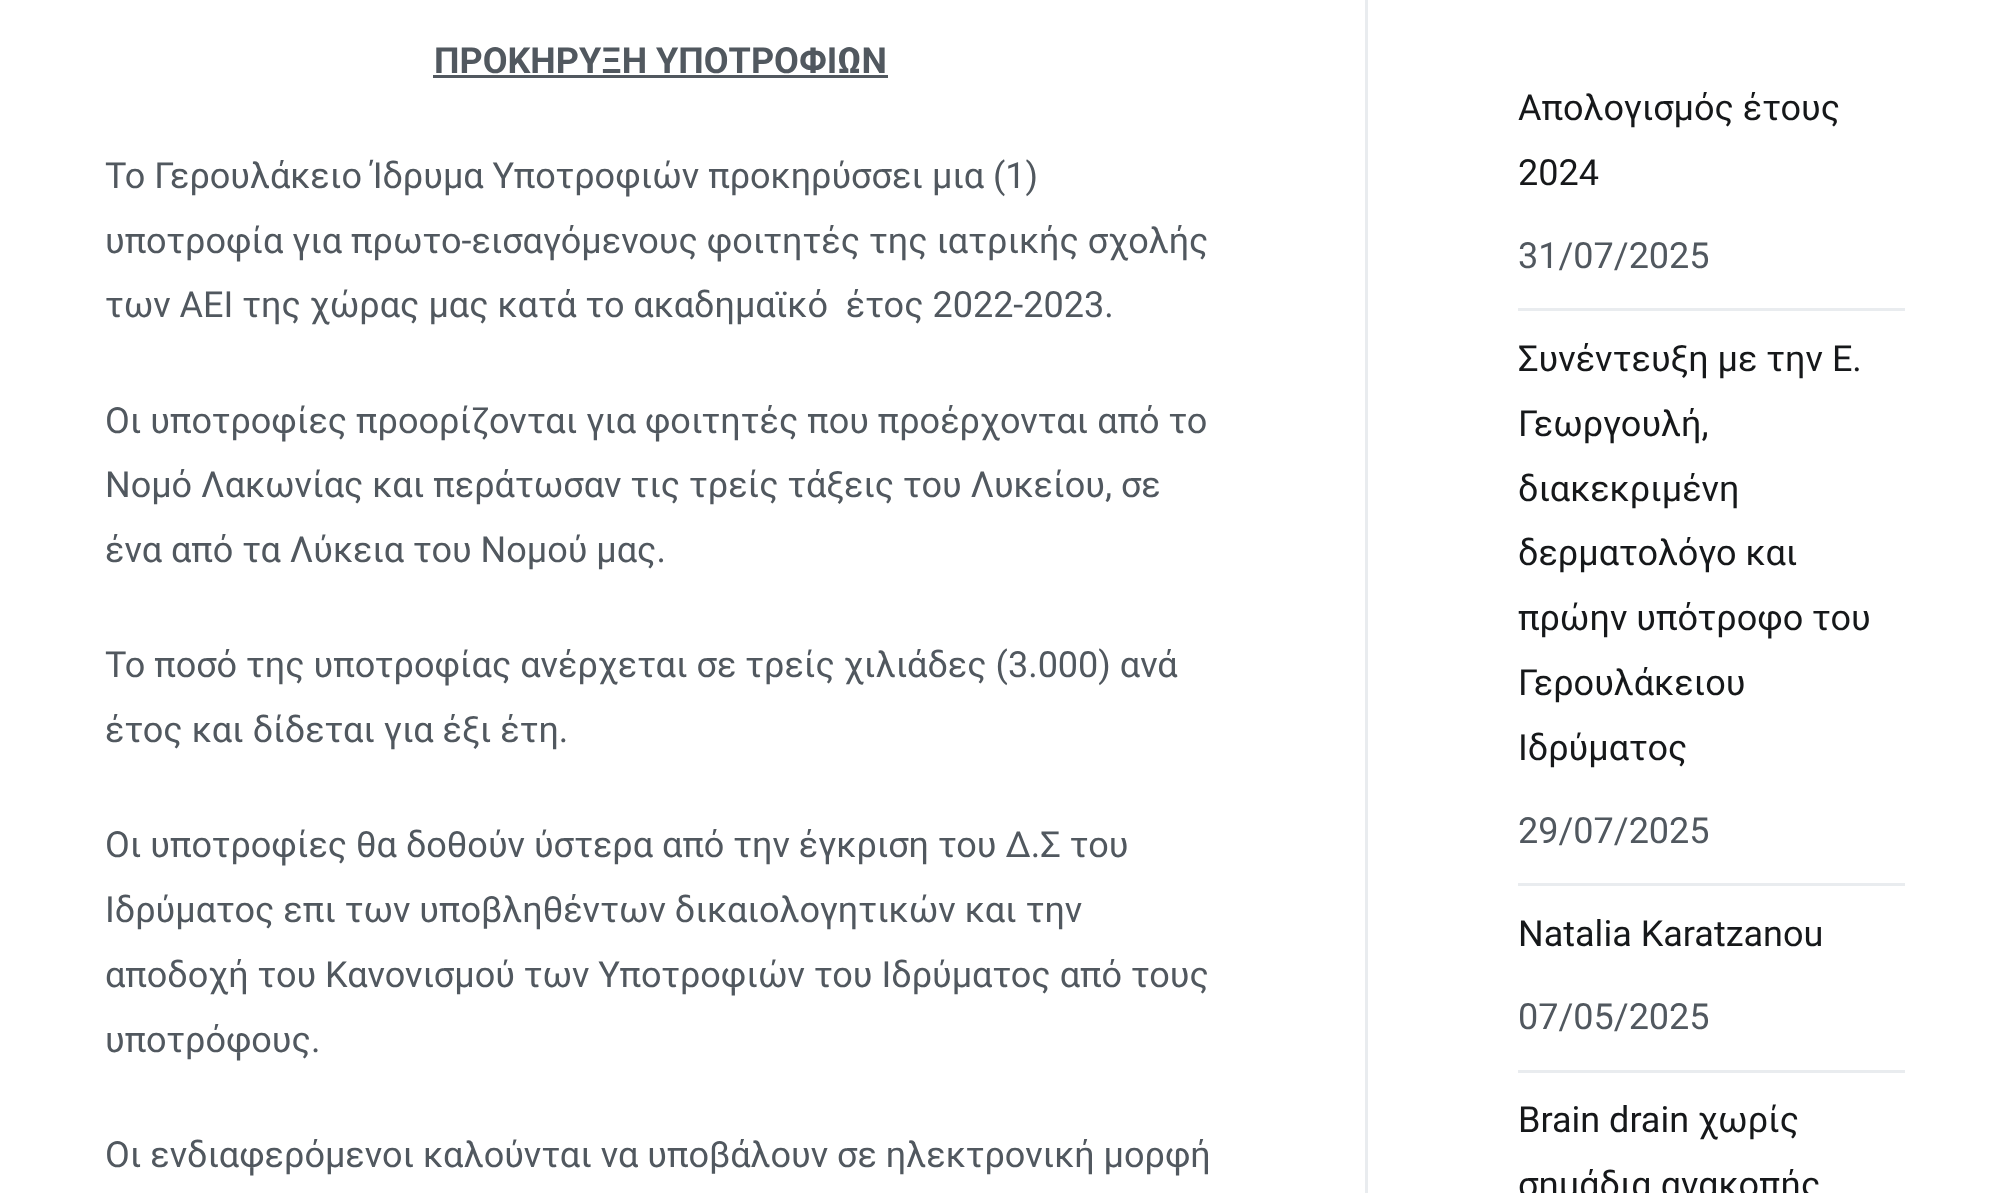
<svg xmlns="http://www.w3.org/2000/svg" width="2009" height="1193">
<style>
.a{font:bold 36px Roboto;fill:#51585f}
.b{font:36px Roboto;fill:#51585f}
.c{font:36px Roboto;fill:#16181a}
</style>
<rect width="100%" height="100%" fill="#fff"/>
<path fill="#51585f" d="M433 75h455v3H433z"/>
<path fill="#e9ecef" d="M1365 0h3v1193H1365z"/>
<path fill="#e9ecef" d="M1518 308h387v3H1518z"/>
<path fill="#e9ecef" d="M1518 883h387v3H1518z"/>
<path fill="#e9ecef" d="M1518 1070h387v3H1518z"/>
<text class="a" x="434" y="73">ΠΡΟΚΗΡΥΞΗ ΥΠΟΤΡΟΦΙΩΝ</text>
<text class="b" x="105" y="188">Το Γερουλάκειο Ίδρυμα Υποτροφιών προκηρύσσει μια (1)</text>
<text class="b" x="105" y="253">υποτροφία για πρωτο-εισαγόμενους φοιτητές της ιατρικής σχολής</text>
<text class="b" xml:space="preserve" x="105" y="317">των ΑΕΙ της χώρας μας κατά το ακαδημαϊκό  έτος 2022-2023.</text>
<text class="b" x="105" y="433">Οι υποτροφίες προορίζονται για φοιτητές που προέρχονται από το</text>
<text class="b" x="105" y="497">Νομό Λακωνίας και περάτωσαν τις τρείς τάξεις του Λυκείου, σε</text>
<text class="b" x="105" y="562">ένα από τα Λύκεια του Νομού μας.</text>
<text class="b" x="105" y="677">Το ποσό της υποτροφίας ανέρχεται σε τρείς χιλιάδες (3.000) ανά</text>
<text class="b" x="105" y="742">έτος και δίδεται για έξι έτη.</text>
<text class="b" x="105" y="857">Οι υποτροφίες θα δοθούν ύστερα από την έγκριση του Δ.Σ του</text>
<text class="b" x="105" y="922">Ιδρύματος επι των υποβληθέντων δικαιολογητικών και την</text>
<text class="b" x="105" y="987">αποδοχή του Κανονισμού των Υποτροφιών του Ιδρύματος από τους</text>
<text class="b" x="105" y="1052">υποτρόφους.</text>
<text class="b" x="105" y="1167">Οι ενδιαφερόμενοι καλούνται να υποβάλουν σε ηλεκτρονική μορφή</text>
<text class="c" x="1518" y="120">Απολογισμός έτους</text>
<text class="c" x="1518" y="185">2024</text>
<text class="b" x="1518" y="268">31/07/2025</text>
<text class="c" x="1518" y="371">Συνέντευξη με την Ε.</text>
<text class="c" x="1518" y="436">Γεωργουλή,</text>
<text class="c" x="1518" y="501">διακεκριμένη</text>
<text class="c" x="1518" y="565">δερματολόγο και</text>
<text class="c" x="1518" y="630">πρώην υπότροφο του</text>
<text class="c" x="1518" y="695">Γερουλάκειου</text>
<text class="c" x="1518" y="760">Ιδρύματος</text>
<text class="b" x="1518" y="843">29/07/2025</text>
<text class="c" x="1518" y="946">Natalia Karatzanou</text>
<text class="b" x="1518" y="1029">07/05/2025</text>
<text class="c" x="1518" y="1132">Brain drain χωρίς</text>
<text class="c" x="1518" y="1197">σημάδια ανακοπής</text>
</svg>
